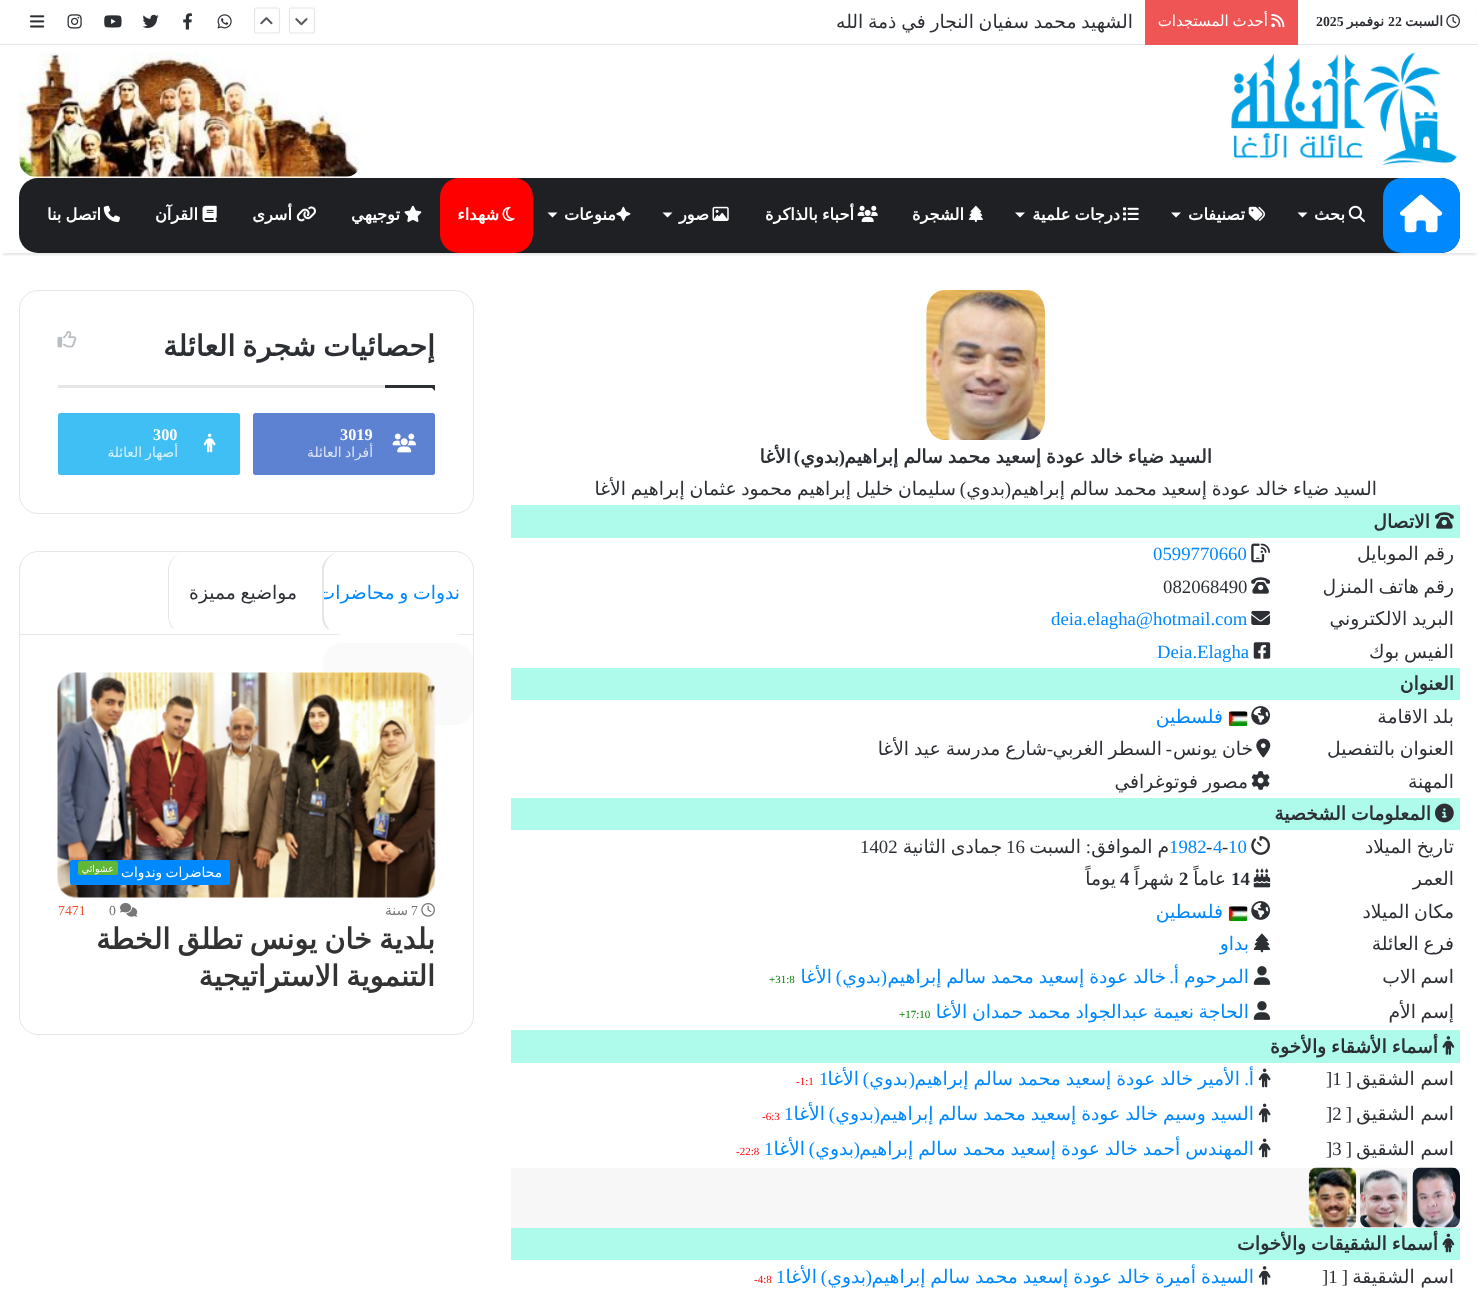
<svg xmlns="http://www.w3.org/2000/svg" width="1478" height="1299">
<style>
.a{font:bold 13.75px DejaVu Sans;direction:rtl;fill:#2c2f34}
.b{font:bold 13.75px Liberation Serif;fill:#2c2f34}
.c{font:15px DejaVu Sans;direction:rtl;fill:#fff}
.d{font:18.75px DejaVu Sans;direction:rtl;fill:#2c2f34}
.e{font:bold 16.25px DejaVu Sans;direction:rtl;fill:#fff}
.f{font:bold 18.75px DejaVu Sans;direction:rtl;fill:#2c2f34}
.g{font:bold 18.75px Liberation Serif;direction:rtl;fill:#2c2f34}
.h{font:18.75px Liberation Serif;direction:rtl;fill:#2c2f34}
.i{font:18.75px Liberation Serif;fill:#08f}
.j{font:18.75px Liberation Serif;fill:#2c2f34}
.k{font:18.75px DejaVu Sans;direction:rtl;fill:#08f}
.l{font:bold 18.75px Liberation Serif;fill:#2c2f34}
.m{font:18.75px Liberation Serif;direction:rtl;fill:#08f}
.n{font:11px Liberation Serif;fill:#008000}
.o{font:11px Liberation Serif;fill:#f00}
.p{font:bold 28.75px DejaVu Sans;direction:rtl;fill:#2c2f34}
.q{font:bold 16.25px Liberation Serif;fill:#fff}
.r{font:13.75px DejaVu Sans;direction:rtl;fill:#dfe6f6}
.s{font:13.75px DejaVu Sans;direction:rtl;fill:#d9f2fd}
.t{font:13.75px DejaVu Sans;direction:rtl;fill:#fff}
.u{font:9.5px DejaVu Sans;direction:rtl;fill:#fff}
.v{font:13.75px Liberation Serif;fill:#777}
.w{font:13.75px DejaVu Sans;direction:rtl;fill:#777}
.x{font:13.75px Liberation Serif;fill:#f3502a}
.y{font:bold 28.75px DejaVu Sans;direction:rtl;fill:#333}
</style>
<defs>
<clipPath id="clip1"><path d="M836 0h297v44H836z"/></clipPath>
<clipPath id="clip2"><path d="M341 552.5h113c10 0 18.5 8.5 18.5 18.5v45c0 10-8.5 18-18.5 18h-113c-9.5 0-17-8-17-18v-45c0-10 7.5-18.5 17-18.5z"/></clipPath>
</defs>
<rect width="100%" height="100%" fill="#fff"/>
<path fill="#0000001a" filter="blur(1px)" d="M3 8h1473v247H3z"/>
<path fill="#fff" d="M2 7h1475v246H2z"/>
<path fill="#e6e6e6" d="M0 44h1478v1H0z"/>
<image href="1.png" x="1446" y="14" width="14" height="14"/>
<path fill="#f05555" d="M1145 0h153v45H1145z"/>
<image href="2.png" x="1271" y="14" width="14" height="14"/>
<path fill="none" stroke="#e6e6e6" stroke-width="1.2" d="M312.5 33h-21.5c-1 0-1.5-.5-1.5-2v-21c0-1 .5-2 1.5-2h21.5c1 0 2 1 2 2v21c0 1.5-1 2-2 2z"/>
<image href="3.png" x="295" y="18" width="13" height="8"/>
<path fill="none" stroke="#e6e6e6" stroke-width="1.2" d="M277.5 33h-21.5c-1 0-1.5-.5-1.5-2v-21c0-1 .5-2 1.5-2h21.5c1 0 2 1 2 2v21c0 1.5-1 2-2 2z"/>
<image href="4.png" x="260" y="17" width="13" height="8"/>
<image href="5.png" x="217" y="14" width="15" height="15"/>
<image href="6.png" x="183" y="13" width="9" height="17"/>
<image href="7.png" x="142" y="14" width="17" height="14"/>
<image href="8.png" x="104" y="15" width="18" height="13"/>
<image href="9.png" x="67" y="14" width="15" height="15"/>
<image href="10.png" x="30" y="15" width="15" height="13"/>
<image href="11.png" x="1231" y="52" width="226" height="113"/>
<image href="12.png" x="18" y="52" width="341" height="126"/>
<rect fill="#1f2024" x="19" y="178" width="1441" height="75" rx="19"/>
<rect fill="#08f" x="1383" y="178" width="77" height="75" rx="19"/>
<image href="13.png" x="1400" y="194" width="43" height="39"/>
<image href="14.png" x="1348" y="205" width="17" height="17"/>
<path fill="#fff" d="M1297.5 212.5h10l-5 5z"/>
<image href="15.png" x="1248" y="206" width="17" height="15"/>
<path fill="#fff" d="M1171 212.5h10l-5 5z"/>
<image href="16.png" x="1123" y="207" width="16" height="14"/>
<path fill="#fff" d="M1015 212.5h10l-5 5z"/>
<image href="17.png" x="968" y="205" width="15" height="17"/>
<image href="18.png" x="857" y="205" width="21" height="17"/>
<image href="19.png" x="712" y="206" width="17" height="15"/>
<path fill="#fff" d="M662.5 212.5h10l-5 5z"/>
<image href="20.png" x="616" y="206" width="15" height="15"/>
<path fill="#fff" d="M547.5 212.5h10l-5 5z"/>
<rect fill="#f00" x="440" y="178" width="93" height="75" rx="19"/>
<image href="21.png" x="502" y="206" width="13" height="15"/>
<image href="22.png" x="404" y="205" width="18" height="17"/>
<image href="23.png" x="296" y="206" width="20" height="16"/>
<image href="24.png" x="202" y="205" width="15" height="17"/>
<image href="25.png" x="103" y="205" width="17" height="17"/>
<image href="26.png" x="926" y="290" width="119" height="150"/>
<path fill="#aefbec" d="M511 505h949v33H511z"/>
<image href="27.png" x="1435" y="512" width="19" height="17"/>
<image href="28.png" x="1251" y="543" width="19" height="20"/>
<image href="29.png" x="1251" y="577" width="19" height="17"/>
<image href="30.png" x="1251" y="610" width="19" height="15"/>
<image href="31.png" x="1253" y="642" width="18" height="17"/>
<path fill="#aefbec" d="M511 668h949v32H511z"/>
<image href="32.png" x="1251" y="706" width="19" height="19"/>
<image href="33.png" x="1228" y="711" width="20" height="16"/>
<image href="34.png" x="1256" y="738" width="15" height="20"/>
<image href="35.png" x="1251" y="771" width="19" height="19"/>
<path fill="#aefbec" d="M511 798h949v32H511z"/>
<image href="36.png" x="1435" y="803" width="19" height="20"/>
<image href="37.png" x="1251" y="836" width="19" height="19"/>
<image href="38.png" x="1253" y="868" width="18" height="20"/>
<image href="32.png" x="1251" y="901" width="19" height="19"/>
<image href="33.png" x="1228" y="906" width="20" height="16"/>
<image href="39.png" x="1253" y="933" width="18" height="20"/>
<image href="40.png" x="1253" y="966" width="18" height="19"/>
<image href="40.png" x="1253" y="1001" width="18" height="19"/>
<path fill="#aefbec" d="M511 1030h949v33H511z"/>
<image href="41.png" x="1442" y="1036" width="13" height="19"/>
<image href="42.png" x="1258" y="1068" width="13" height="20"/>
<image href="42.png" x="1258" y="1103" width="13" height="20"/>
<image href="42.png" x="1258" y="1138" width="13" height="20"/>
<path fill="#f7f7f7" d="M511 1168h949v60H511z"/>
<image href="43.png" x="1412" y="1167" width="48" height="61"/>
<image href="44.png" x="1360" y="1167" width="48" height="61"/>
<image href="45.png" x="1308" y="1167" width="49" height="61"/>
<path fill="#aefbec" d="M511 1228h949v32H511z"/>
<image href="46.png" x="1442" y="1233" width="13" height="20"/>
<image href="47.png" x="1258" y="1266" width="13" height="19"/>
<rect fill="none" stroke="#e6e6e6" x="19.5" y="290.5" width="454" height="223" rx="18.5"/>
<path fill="#e6e6e6" d="M58 385h327v3H58z"/>
<image href="48.png" x="57" y="331" width="20" height="17"/>
<path fill="#2c2f34" d="M429 385h6v6z"/>
<path fill="#2c2f34" d="M385 385h50v3H385z"/>
<rect fill="#5d82d1" x="253" y="413" width="182" height="62" rx="2.5"/>
<image href="49.png" x="392" y="433" width="24" height="20"/>
<rect fill="#40bff5" x="58" y="413" width="182" height="62" rx="2.5"/>
<image href="50.png" x="203" y="433" width="13" height="20"/>
<rect fill="none" stroke="#e6e6e6" x="19.5" y="551.5" width="454" height="483" rx="18.5"/>
<path fill="#e6e6e6" d="M20 634h453v1H20z"/>
<rect fill="#fff" x="323" y="553" width="150" height="82" rx="19"/>
<path fill="#e6e6e6" d="M329 629l-1 1c-3-3-5-6-6-10v-53c2-7 8-13 15-15c-7 3-13 10-13 19v45c0 5 2 9 5 13z"/>
<path fill="#0000001a" d="M182 552c-7 3-13 10-13 19v45c0 5 2 9 5 13h-1c-3-3-5-8-5-13v-45c0-9 6-16 14-19z"/>
<rect fill="#fafafa" x="323" y="643" width="150" height="82" rx="19"/>
<image href="51.png" x="57" y="672" width="379" height="226"/>
<rect fill="#08f" x="70" y="860" width="160" height="25" rx="2.5"/>
<rect fill="#61b738" x="78" y="861" width="40" height="14" rx="2.5"/>
<image href="52.png" x="421" y="903" width="14" height="14"/>
<image href="53.png" x="120" y="903" width="18" height="14"/>
<text class="a" x="1443" y="26">السبت</text>
<text class="b" x="1388" y="26">22</text>
<text class="a" x="1384" y="26">نوفمبر</text>
<text class="b" x="1316" y="26">2025</text>
<text class="c" x="1268" y="26" word-spacing="-1">أحدث المستجدات</text>
<g clip-path="url(#clip1)">
<text class="d" x="1133" y="28" word-spacing="-1.25">الشهيد محمد سفيان النجار في ذمة الله</text>
</g>
<text class="e" x="1345" y="220">بحث</text>
<text class="e" x="1245" y="220">تصنيفات</text>
<text class="e" x="1120" y="220" word-spacing="-1">درجات علمية</text>
<text class="e" x="964" y="220">الشجرة</text>
<text class="e" x="854" y="220" word-spacing="-1">أحباء بالذاكرة</text>
<text class="e" x="709" y="220">صور</text>
<text class="e" x="616" y="220">منوعات</text>
<text class="e" x="499" y="220">شهداء</text>
<text class="e" x="400" y="220">توجيهي</text>
<text class="e" x="292" y="220">أسرى</text>
<text class="e" x="198" y="220">القرآن</text>
<text class="e" x="101" y="220" word-spacing="-1">اتصل بنا</text>
<text class="f" x="1212" y="463" word-spacing="-1">السيد ضياء خالد عودة إسعيد محمد سالم إبراهيم</text>
<text class="g" x="845" y="463">(</text>
<text class="f" x="839" y="463">بدوي</text>
<text class="g" x="800" y="463">)</text>
<text class="f" x="791" y="463">الأغا</text>
<text class="d" x="1377" y="495" word-spacing="-1.25">السيد ضياء خالد عودة إسعيد محمد سالم إبراهيم</text>
<text class="h" x="1011" y="495">(</text>
<text class="d" x="1005" y="495">بدوي</text>
<text class="d" x="956" y="495" word-spacing="-1.25">سليمان خليل إبراهيم محمود عثمان إبراهيم الأغا</text>
<text class="h" x="966" y="495">)</text>
<text class="f" x="1430" y="528">الاتصال</text>
<text class="d" x="1454" y="560" word-spacing="-1.25">رقم الموبايل</text>
<text class="i" x="1153" y="560">0599770660</text>
<text class="d" x="1454" y="593" word-spacing="-1.25">رقم هاتف المنزل</text>
<text class="j" x="1163" y="593">082068490</text>
<text class="d" x="1454" y="625" word-spacing="-1.25">البريد الالكتروني</text>
<text class="i" x="1051" y="625">deia.elagha@hotmail.com</text>
<text class="d" x="1454" y="658" word-spacing="-1.25">الفيس بوك</text>
<text class="i" x="1157" y="658">Deia.Elagha</text>
<text class="f" x="1454" y="690">العنوان</text>
<text class="d" x="1454" y="723" word-spacing="-1.25">بلد الاقامة</text>
<text class="k" x="1223" y="723">فلسطين</text>
<text class="d" x="1454" y="755" word-spacing="-1.25">العنوان بالتفصيل</text>
<text class="d" x="1253" y="755" word-spacing="-1">خان يونس</text>
<text class="h" x="1172" y="755">-</text>
<text class="d" x="1162" y="755" word-spacing="-1">السطر الغربي</text>
<text class="d" x="1047" y="755" word-spacing="-1">شارع مدرسة عيد الأغا</text>
<text class="h" x="1053" y="755">-</text>
<text class="d" x="1454" y="788">المهنة</text>
<text class="d" x="1248" y="788" word-spacing="-1">مصور فوتوغرافي</text>
<text class="f" x="1431" y="820" word-spacing="-1">المعلومات الشخصية</text>
<text class="d" x="1454" y="853" word-spacing="-1.25">تاريخ الميلاد</text>
<text class="i" x="1228" y="853">10</text>
<text class="j" x="1222" y="853">-</text>
<text class="i" x="1213" y="853">4</text>
<text class="j" x="1206" y="853">-</text>
<text class="i" x="1169" y="853">1982</text>
<text class="d" x="1169" y="853" word-spacing="-1">م الموافق</text>
<text class="h" x="1091" y="853">:</text>
<text class="d" x="1081" y="853">السبت</text>
<text class="j" x="1006" y="853">16</text>
<text class="d" x="1002" y="853" word-spacing="-1">جمادى الثانية</text>
<text class="j" x="860" y="853">1402</text>
<text class="d" x="1454" y="885">العمر</text>
<text class="l" x="1231" y="885">14</text>
<text class="d" x="1226" y="885">عاماً</text>
<text class="l" x="1179" y="885">2</text>
<text class="d" x="1174" y="885">شهراً</text>
<text class="l" x="1120" y="885">4</text>
<text class="d" x="1116" y="885">يوماً</text>
<text class="d" x="1454" y="918" word-spacing="-1.25">مكان الميلاد</text>
<text class="k" x="1223" y="918">فلسطين</text>
<text class="d" x="1454" y="950" word-spacing="-1.25">فرع العائلة</text>
<text class="k" x="1249" y="950">بداو</text>
<text class="d" x="1454" y="983" word-spacing="-1.25">اسم الاب</text>
<text class="k" x="1249" y="983" word-spacing="-1">المرحوم أ</text>
<text class="m" x="1174" y="983">.</text>
<text class="k" x="1166" y="983" word-spacing="-1">خالد عودة إسعيد محمد سالم إبراهيم</text>
<text class="m" x="887" y="983">(</text>
<text class="k" x="881" y="983">بدوي</text>
<text class="m" x="842" y="983">)</text>
<text class="k" x="832" y="983">الأغا</text>
<text class="n" x="769" y="983">+31:8</text>
<text class="d" x="1454" y="1018" word-spacing="-1.25">إسم الأم</text>
<text class="k" x="1249" y="1018" word-spacing="-1.25">الحاجة نعيمة عبدالجواد محمد حمدان الأغا</text>
<text class="n" x="899" y="1018">+17:10</text>
<text class="f" x="1438" y="1053" word-spacing="-1">أسماء الأشقاء والأخوة</text>
<text class="d" x="1454" y="1085">اسم الشقيق</text>
<text class="h" x="1352" y="1085">[</text>
<text class="j" x="1326" y="1085">]1</text>
<text class="k" x="1254" y="1085">أ</text>
<text class="m" x="1249" y="1085">.</text>
<text class="k" x="1240" y="1085" word-spacing="-1">الأمير خالد عودة إسعيد محمد سالم إبراهيم</text>
<text class="m" x="915" y="1085">(</text>
<text class="k" x="908" y="1085">بدوي</text>
<text class="m" x="869" y="1085">)</text>
<text class="k" x="859" y="1085">الأغا</text>
<text class="i" x="819" y="1085">1</text>
<text class="o" x="796" y="1085">-1:1</text>
<text class="d" x="1454" y="1120">اسم الشقيق</text>
<text class="h" x="1352" y="1120">[</text>
<text class="j" x="1326" y="1120">]2</text>
<text class="k" x="1254" y="1120" word-spacing="-1">السيد وسيم خالد عودة إسعيد محمد سالم إبراهيم</text>
<text class="m" x="880" y="1120">(</text>
<text class="k" x="874" y="1120">بدوي</text>
<text class="m" x="835" y="1120">)</text>
<text class="k" x="825" y="1120">الأغا</text>
<text class="i" x="784" y="1120">1</text>
<text class="o" x="762" y="1120">-6:3</text>
<text class="d" x="1454" y="1155">اسم الشقيق</text>
<text class="h" x="1352" y="1155">[</text>
<text class="j" x="1326" y="1155">]3</text>
<text class="k" x="1254" y="1155" word-spacing="-1">المهندس أحمد خالد عودة إسعيد محمد سالم إبراهيم</text>
<text class="m" x="860" y="1155">(</text>
<text class="k" x="854" y="1155">بدوي</text>
<text class="m" x="815" y="1155">)</text>
<text class="k" x="805" y="1155">الأغا</text>
<text class="i" x="764" y="1155">1</text>
<text class="o" x="736" y="1155">-22:8</text>
<text class="f" x="1438" y="1250" word-spacing="-1">أسماء الشقيقات والأخوات</text>
<text class="d" x="1454" y="1283">اسم الشقيقة</text>
<text class="h" x="1348" y="1283">[</text>
<text class="j" x="1322" y="1283">]1</text>
<text class="k" x="1254" y="1283" word-spacing="-1">السيدة أميرة خالد عودة إسعيد محمد سالم إبراهيم</text>
<text class="m" x="872" y="1283">(</text>
<text class="k" x="866" y="1283">بدوي</text>
<text class="m" x="827" y="1283">)</text>
<text class="k" x="817" y="1283">الأغا</text>
<text class="i" x="776" y="1283">1</text>
<text class="o" x="754" y="1283">-4:8</text>
<text class="p" x="435" y="356" word-spacing="-2">إحصائيات شجرة العائلة</text>
<text class="q" x="340" y="440">3019</text>
<text class="r" x="373" y="457" word-spacing="-1">أفراد العائلة</text>
<text class="q" x="153" y="440">300</text>
<text class="s" x="178" y="457" word-spacing="-1">أصهار العائلة</text>
<g clip-path="url(#clip2)">
<text class="k" x="460" y="599" word-spacing="-1.25">ندوات و محاضرات</text>
</g>
<text class="d" x="297" y="599" word-spacing="-1.25">مواضيع مميزة</text>
<text class="t" x="222" y="877" word-spacing="-1">محاضرات وندوات</text>
<text class="u" x="114" y="872">عشوائي</text>
<text class="v" x="411" y="915">7</text>
<text class="w" x="408" y="915">سنة</text>
<text class="v" x="109" y="915">0</text>
<text class="x" x="58" y="915">7471</text>
<text class="y" x="435" y="949" word-spacing="-2">بلدية خان يونس تطلق الخطة</text>
<text class="y" x="435" y="986" word-spacing="-2">التنموية الاستراتيجية</text>
</svg>
